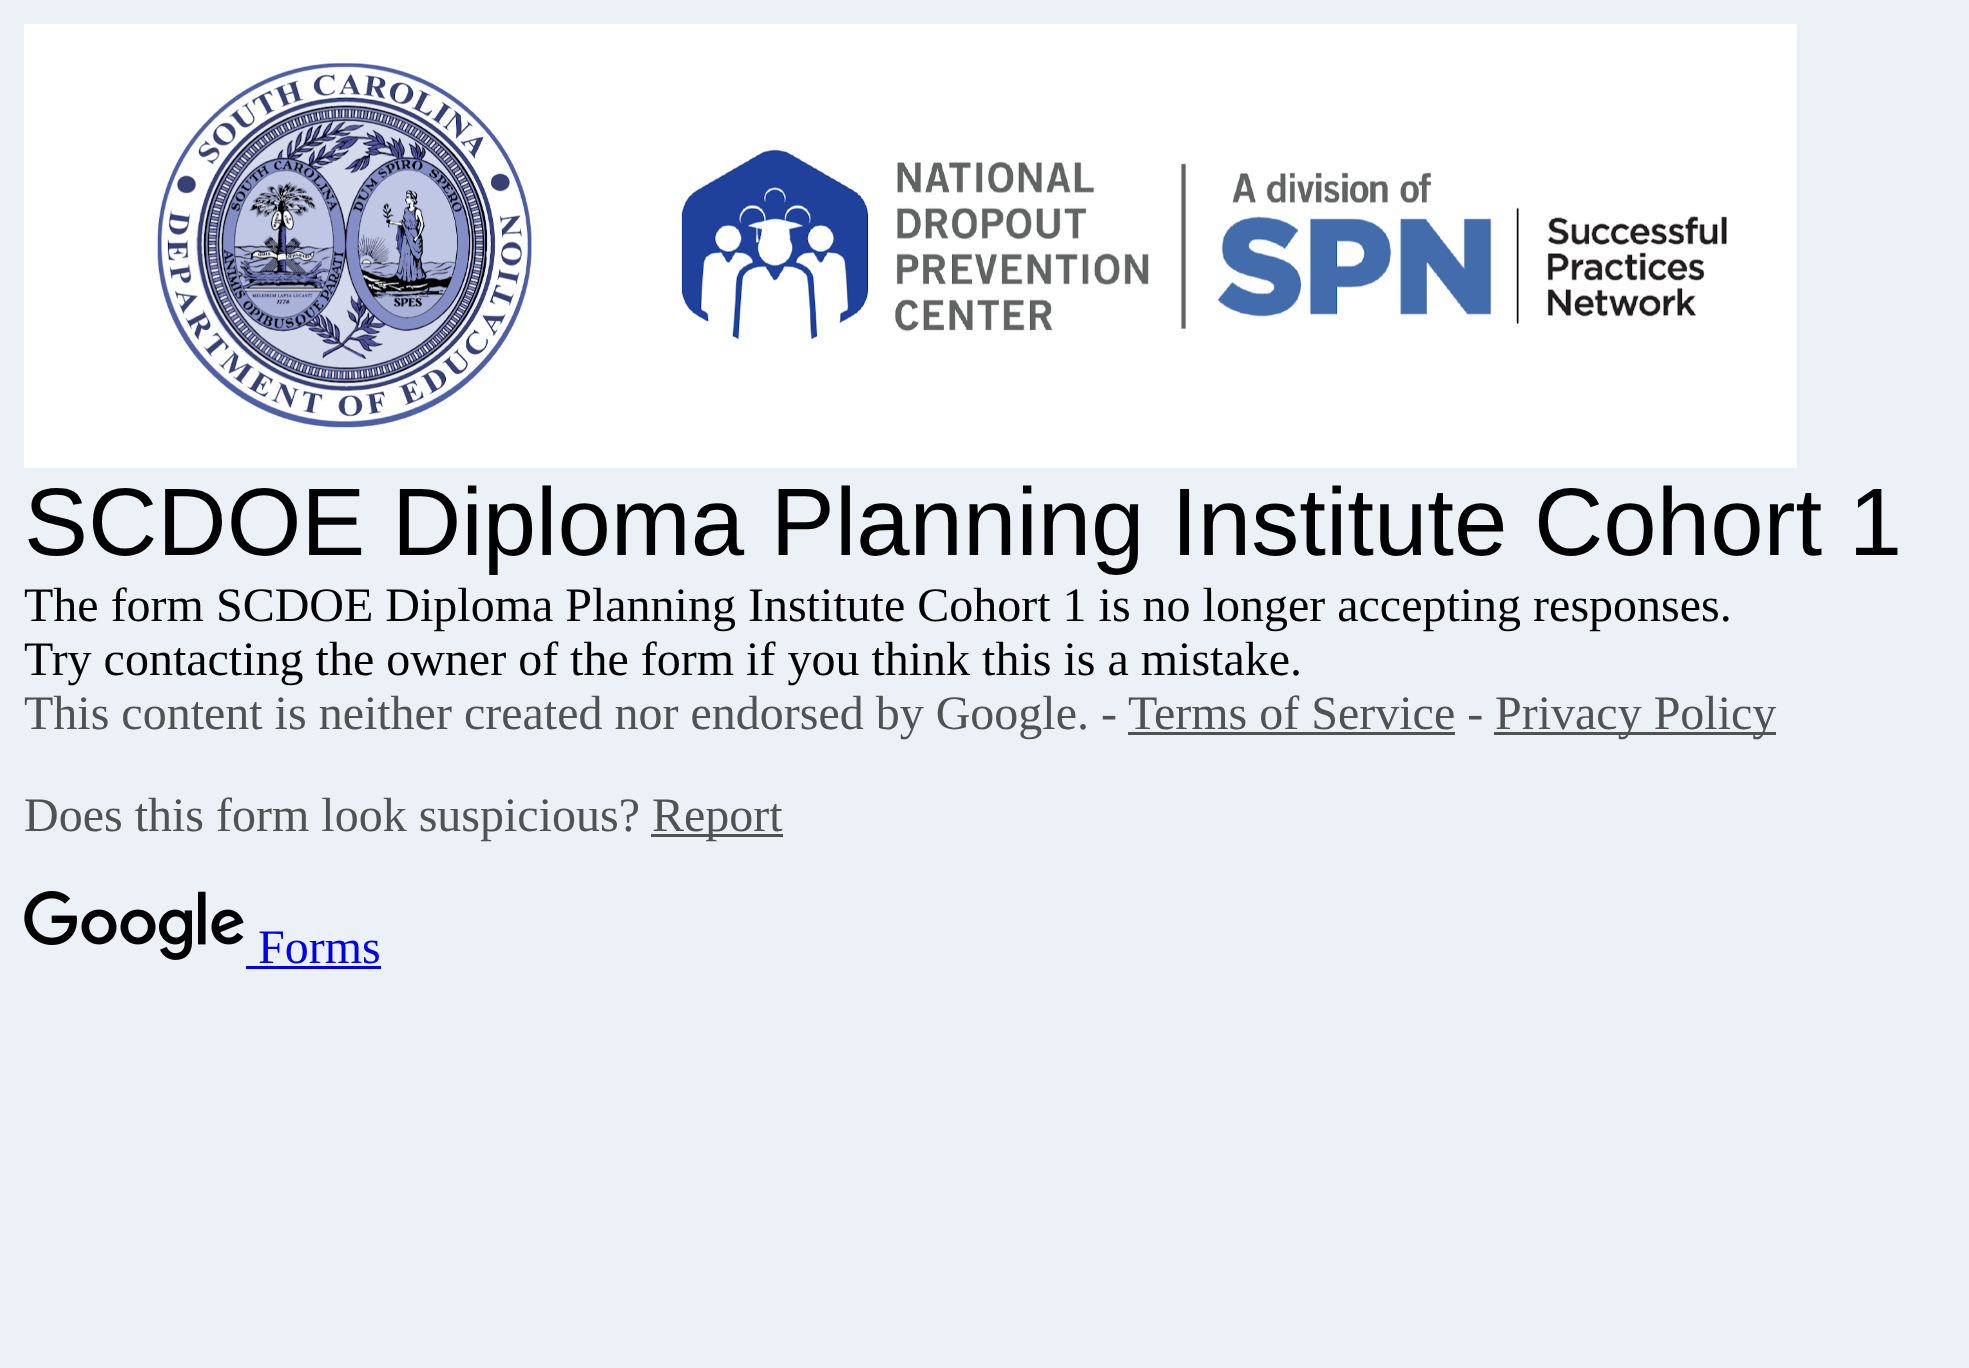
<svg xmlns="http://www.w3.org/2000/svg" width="1969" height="1368">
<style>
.a{font:96px Liberation Sans;fill:#000}
.b{font:48px Liberation Serif;fill:#000}
.c{font:48px Liberation Serif;fill:#505254}
.d{font:48px Liberation Serif;fill:#00e}
</style>
<rect width="100%" height="100%" fill="#ecf0f7"/>
<image href="1.png" x="24" y="24" width="1773" height="444"/>
<path fill="#505254" d="M1128 732h327v3H1128z"/>
<path fill="#505254" d="M1494 732h282v3H1494z"/>
<path fill="#505254" d="M651 834h132v3H651z"/>
<image href="2.png" x="24" y="891" width="220" height="69"/>
<path fill="#00e" d="M246 966h135v3H246z"/>
<text class="a" x="24" y="555">SCDOE Diploma Planning Institute Cohort 1</text>
<text class="b" x="24" y="621">The form SCDOE Diploma Planning Institute Cohort 1 is no longer accepting responses.</text>
<text class="b" x="24" y="675">Try contacting the owner of the form if you think this is a mistake.</text>
<text class="c" x="24" y="729">This content is neither created nor endorsed by Google. -</text>
<text class="c" x="1128" y="729">Terms of Service -</text>
<text class="c" x="1495" y="729">Privacy Policy</text>
<text class="c" x="24" y="831">Does this form look suspicious?</text>
<text class="c" x="652" y="831">Report</text>
<text class="d" x="258" y="963">Forms</text>
</svg>
